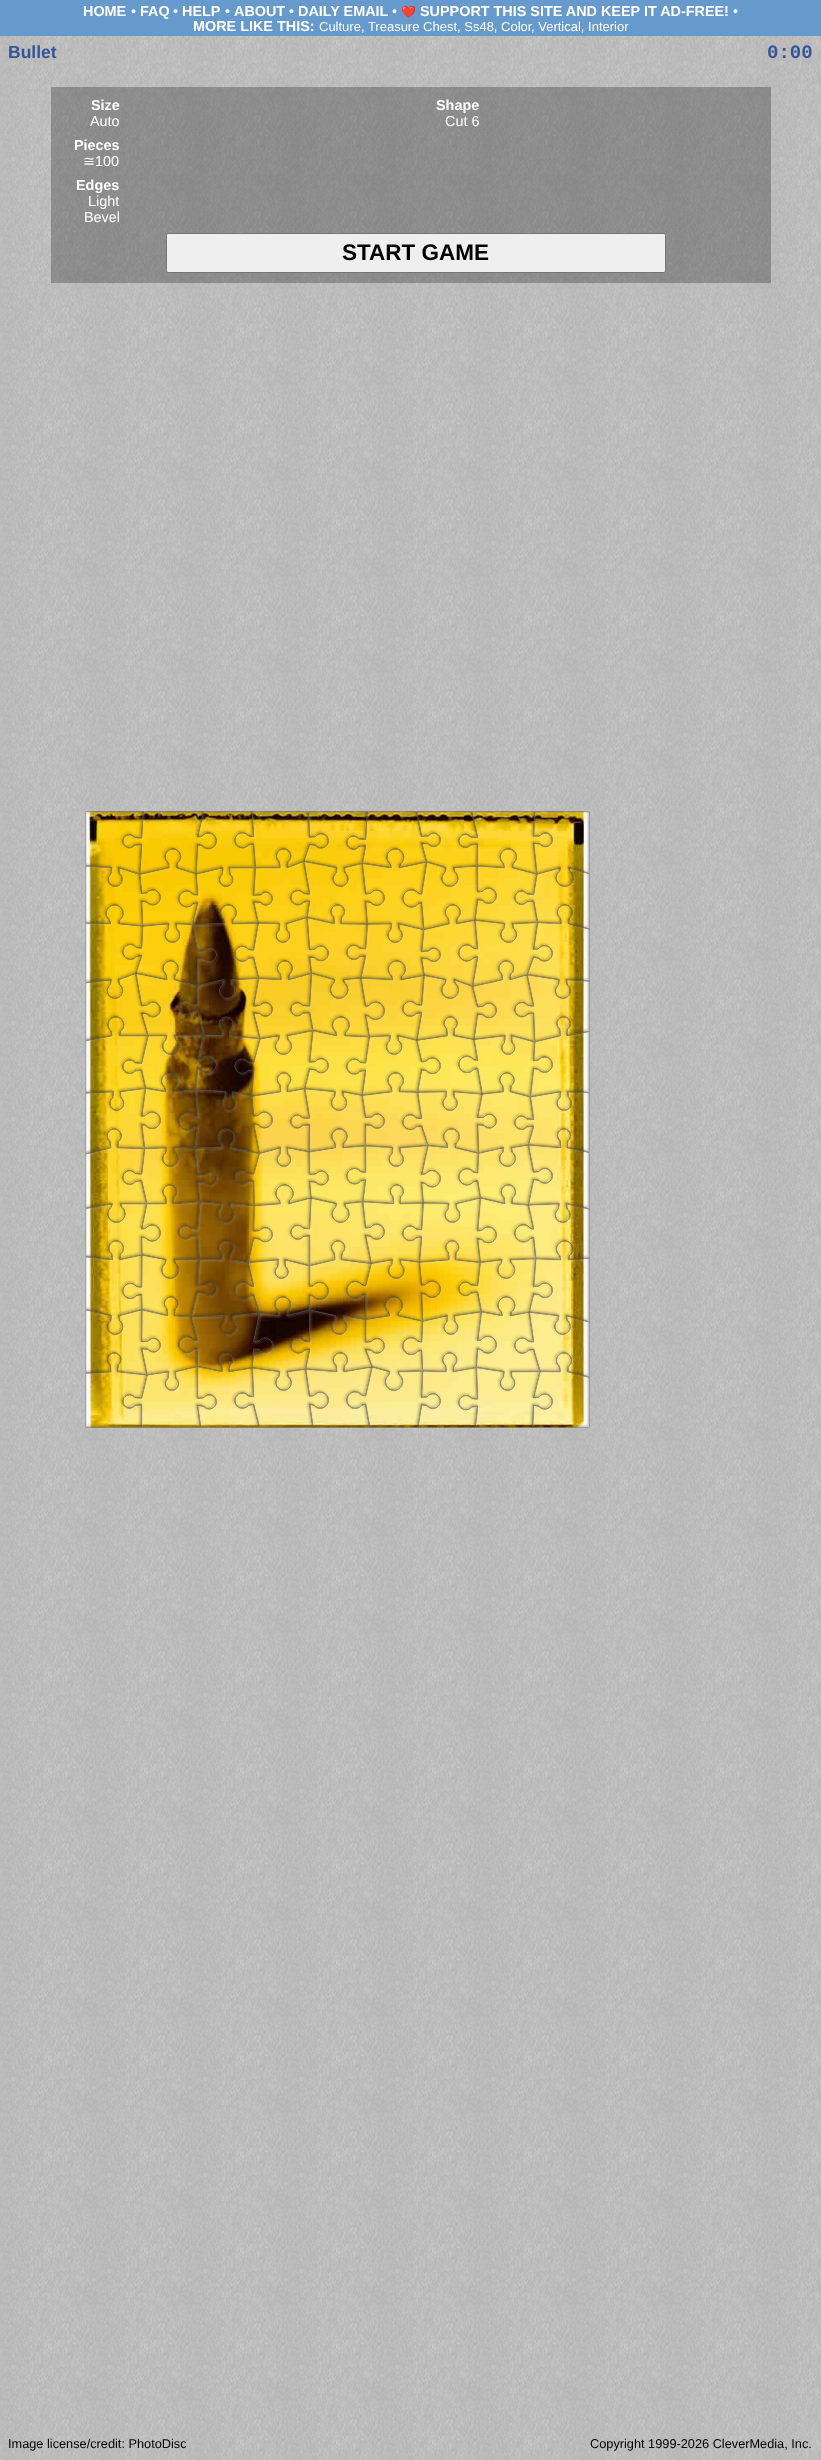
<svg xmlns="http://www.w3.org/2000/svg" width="821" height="2460">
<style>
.a{font:bold 14.4px Liberation Sans;fill:#fff}
.b{font:14.4px Liberation Sans;fill:#fff}
.c{font:12px Noto Color Emoji;fill:#fff}
.d{font:13px Liberation Sans;fill:#fff}
.e{font:bold 17.5px Liberation Sans;fill:#359}
.f{font:bold 19px Liberation Mono;fill:#359}
.g{font:14.4px DejaVu Sans;fill:#fff}
.h{font:bold 22.5px Liberation Sans;fill:#000}
.i{font:12.75px Liberation Sans;fill:#000}
</style>
<rect width="100%" height="100%" fill="#69c"/>
<image href="1.png" x="0" y="36" width="821" height="2424"/>
<image href="2.png" x="85" y="811" width="58" height="76"/>
<image href="3.png" x="123" y="811" width="94" height="64"/>
<image href="4.png" x="196" y="811" width="60" height="76"/>
<image href="5.png" x="235" y="811" width="94" height="57"/>
<image href="6.png" x="303" y="811" width="65" height="76"/>
<image href="7.png" x="347" y="811" width="94" height="57"/>
<image href="8.png" x="416" y="811" width="62" height="76"/>
<image href="9.png" x="459" y="811" width="94" height="63"/>
<image href="10.png" x="533" y="811" width="57" height="76"/>
<image href="11.png" x="85" y="866" width="76" height="60"/>
<image href="12.png" x="139" y="849" width="59" height="94"/>
<image href="13.png" x="179" y="867" width="94" height="58"/>
<image href="14.png" x="253" y="849" width="57" height="94"/>
<image href="15.png" x="291" y="861" width="94" height="63"/>
<image href="16.png" x="362" y="849" width="65" height="94"/>
<image href="17.png" x="403" y="862" width="94" height="68"/>
<image href="18.png" x="475" y="849" width="63" height="94"/>
<image href="19.png" x="515" y="867" width="75" height="62"/>
<image href="20.png" x="85" y="905" width="58" height="94"/>
<image href="21.png" x="123" y="923" width="94" height="63"/>
<image href="22.png" x="192" y="905" width="67" height="94"/>
<image href="23.png" x="235" y="917" width="94" height="63"/>
<image href="24.png" x="307" y="905" width="61" height="94"/>
<image href="25.png" x="347" y="923" width="94" height="57"/>
<image href="26.png" x="421" y="905" width="57" height="94"/>
<image href="27.png" x="459" y="920" width="94" height="67"/>
<image href="28.png" x="527" y="905" width="63" height="94"/>
<image href="29.png" x="85" y="973" width="76" height="68"/>
<image href="30.png" x="135" y="961" width="69" height="94"/>
<image href="31.png" x="179" y="978" width="94" height="61"/>
<image href="32.png" x="253" y="961" width="60" height="94"/>
<image href="33.png" x="291" y="973" width="94" height="64"/>
<image href="34.png" x="361" y="961" width="64" height="94"/>
<image href="35.png" x="403" y="975" width="94" height="66"/>
<image href="36.png" x="472" y="961" width="63" height="94"/>
<image href="37.png" x="514" y="974" width="76" height="68"/>
<image href="38.png" x="85" y="1017" width="63" height="94"/>
<image href="39.png" x="123" y="1035" width="94" height="57"/>
<image href="40.png" x="195" y="1017" width="65" height="94"/>
<image href="41.png" x="235" y="1030" width="94" height="67"/>
<image href="42.png" x="304" y="1017" width="66" height="94"/>
<image href="43.png" x="347" y="1035" width="94" height="61"/>
<image href="44.png" x="417" y="1017" width="65" height="94"/>
<image href="45.png" x="458" y="1035" width="95" height="62"/>
<image href="46.png" x="530" y="1017" width="60" height="94"/>
<image href="47.png" x="85" y="1088" width="76" height="66"/>
<image href="48.png" x="141" y="1073" width="57" height="94"/>
<image href="49.png" x="179" y="1089" width="94" height="65"/>
<image href="50.png" x="251" y="1073" width="59" height="94"/>
<image href="51.png" x="291" y="1088" width="94" height="64"/>
<image href="52.png" x="362" y="1073" width="66" height="94"/>
<image href="53.png" x="403" y="1091" width="94" height="62"/>
<image href="54.png" x="477" y="1073" width="57" height="94"/>
<image href="55.png" x="515" y="1091" width="75" height="61"/>
<image href="56.png" x="85" y="1129" width="62" height="94"/>
<image href="57.png" x="123" y="1147" width="94" height="57"/>
<image href="58.png" x="194" y="1129" width="66" height="94"/>
<image href="59.png" x="234" y="1147" width="95" height="59"/>
<image href="60.png" x="309" y="1129" width="57" height="94"/>
<image href="61.png" x="347" y="1145" width="94" height="59"/>
<image href="62.png" x="421" y="1129" width="60" height="94"/>
<image href="63.png" x="459" y="1144" width="94" height="61"/>
<image href="64.png" x="528" y="1129" width="62" height="94"/>
<image href="65.png" x="85" y="1203" width="76" height="57"/>
<image href="66.png" x="141" y="1185" width="59" height="94"/>
<image href="67.png" x="179" y="1201" width="94" height="62"/>
<image href="68.png" x="248" y="1185" width="63" height="94"/>
<image href="69.png" x="291" y="1197" width="94" height="69"/>
<image href="70.png" x="362" y="1185" width="62" height="94"/>
<image href="71.png" x="403" y="1197" width="94" height="66"/>
<image href="72.png" x="477" y="1185" width="59" height="94"/>
<image href="73.png" x="515" y="1203" width="75" height="57"/>
<image href="74.png" x="85" y="1241" width="57" height="94"/>
<image href="75.png" x="123" y="1254" width="94" height="63"/>
<image href="76.png" x="191" y="1241" width="69" height="94"/>
<image href="77.png" x="235" y="1259" width="94" height="57"/>
<image href="78.png" x="309" y="1241" width="62" height="94"/>
<image href="79.png" x="347" y="1259" width="94" height="62"/>
<image href="80.png" x="419" y="1241" width="63" height="94"/>
<image href="81.png" x="459" y="1258" width="94" height="58"/>
<image href="82.png" x="529" y="1241" width="61" height="94"/>
<image href="83.png" x="85" y="1309" width="76" height="66"/>
<image href="84.png" x="141" y="1297" width="57" height="94"/>
<image href="85.png" x="179" y="1313" width="94" height="59"/>
<image href="86.png" x="252" y="1297" width="58" height="94"/>
<image href="87.png" x="291" y="1310" width="94" height="62"/>
<image href="88.png" x="365" y="1297" width="58" height="94"/>
<image href="89.png" x="403" y="1311" width="94" height="61"/>
<image href="90.png" x="476" y="1297" width="64" height="94"/>
<image href="91.png" x="515" y="1312" width="75" height="65"/>
<image href="92.png" x="85" y="1353" width="62" height="75"/>
<image href="93.png" x="123" y="1366" width="94" height="62"/>
<image href="94.png" x="197" y="1353" width="63" height="75"/>
<image href="95.png" x="235" y="1367" width="94" height="61"/>
<image href="96.png" x="305" y="1353" width="68" height="75"/>
<image href="97.png" x="347" y="1366" width="94" height="62"/>
<image href="98.png" x="417" y="1353" width="61" height="75"/>
<image href="99.png" x="459" y="1367" width="94" height="61"/>
<image href="100.png" x="532" y="1353" width="58" height="75"/>
<path fill="#00000040" d="M51 87h720v196H51z"/>
<rect fill="#efefef" stroke="#767676" x="166.5" y="233.5" width="499" height="39" rx="1.5"/>
<text class="a" x="83" y="16">HOME</text>
<text class="b" x="131" y="16">•</text>
<text class="a" x="140" y="16">FAQ</text>
<text class="b" x="173" y="16">•</text>
<text class="a" x="182" y="16">HELP</text>
<text class="b" x="225" y="16">•</text>
<text class="a" x="234" y="16">ABOUT</text>
<text class="b" x="289" y="16">•</text>
<text class="a" x="298" y="16">DAILY EMAIL</text>
<text class="b" x="392" y="16">•</text>
<text class="c" x="401" y="16">❤️</text>
<text class="a" x="420" y="16">SUPPORT THIS SITE AND KEEP IT AD-FREE!</text>
<text class="b" x="733" y="16">•</text>
<text class="a" x="193" y="31">MORE LIKE THIS:</text>
<text class="d" x="319" y="31">Culture, Treasure Chest, Ss48, Color</text>
<text class="d" x="531" y="31">, Vertical, Interior</text>
<text class="e" x="8" y="58">Bullet</text>
<text class="f" x="767" y="58">0:00</text>
<text class="a" x="91" y="110">Size</text>
<text class="b" x="90" y="126">Auto</text>
<text class="a" x="74" y="150">Pieces</text>
<text class="g" x="83" y="166">≅</text>
<text class="b" x="95" y="166">100</text>
<text class="a" x="76" y="190">Edges</text>
<text class="b" x="88" y="206">Light</text>
<text class="b" x="84" y="222">Bevel</text>
<text class="a" x="436" y="110">Shape</text>
<text class="b" x="445" y="126">Cut 6</text>
<text class="h" x="342" y="260">START GAME</text>
<text class="i" x="8" y="2448">Image license/credit: PhotoDisc</text>
<text class="i" x="590" y="2448">Copyright 1999-2026 CleverMedia, Inc.</text>
</svg>
